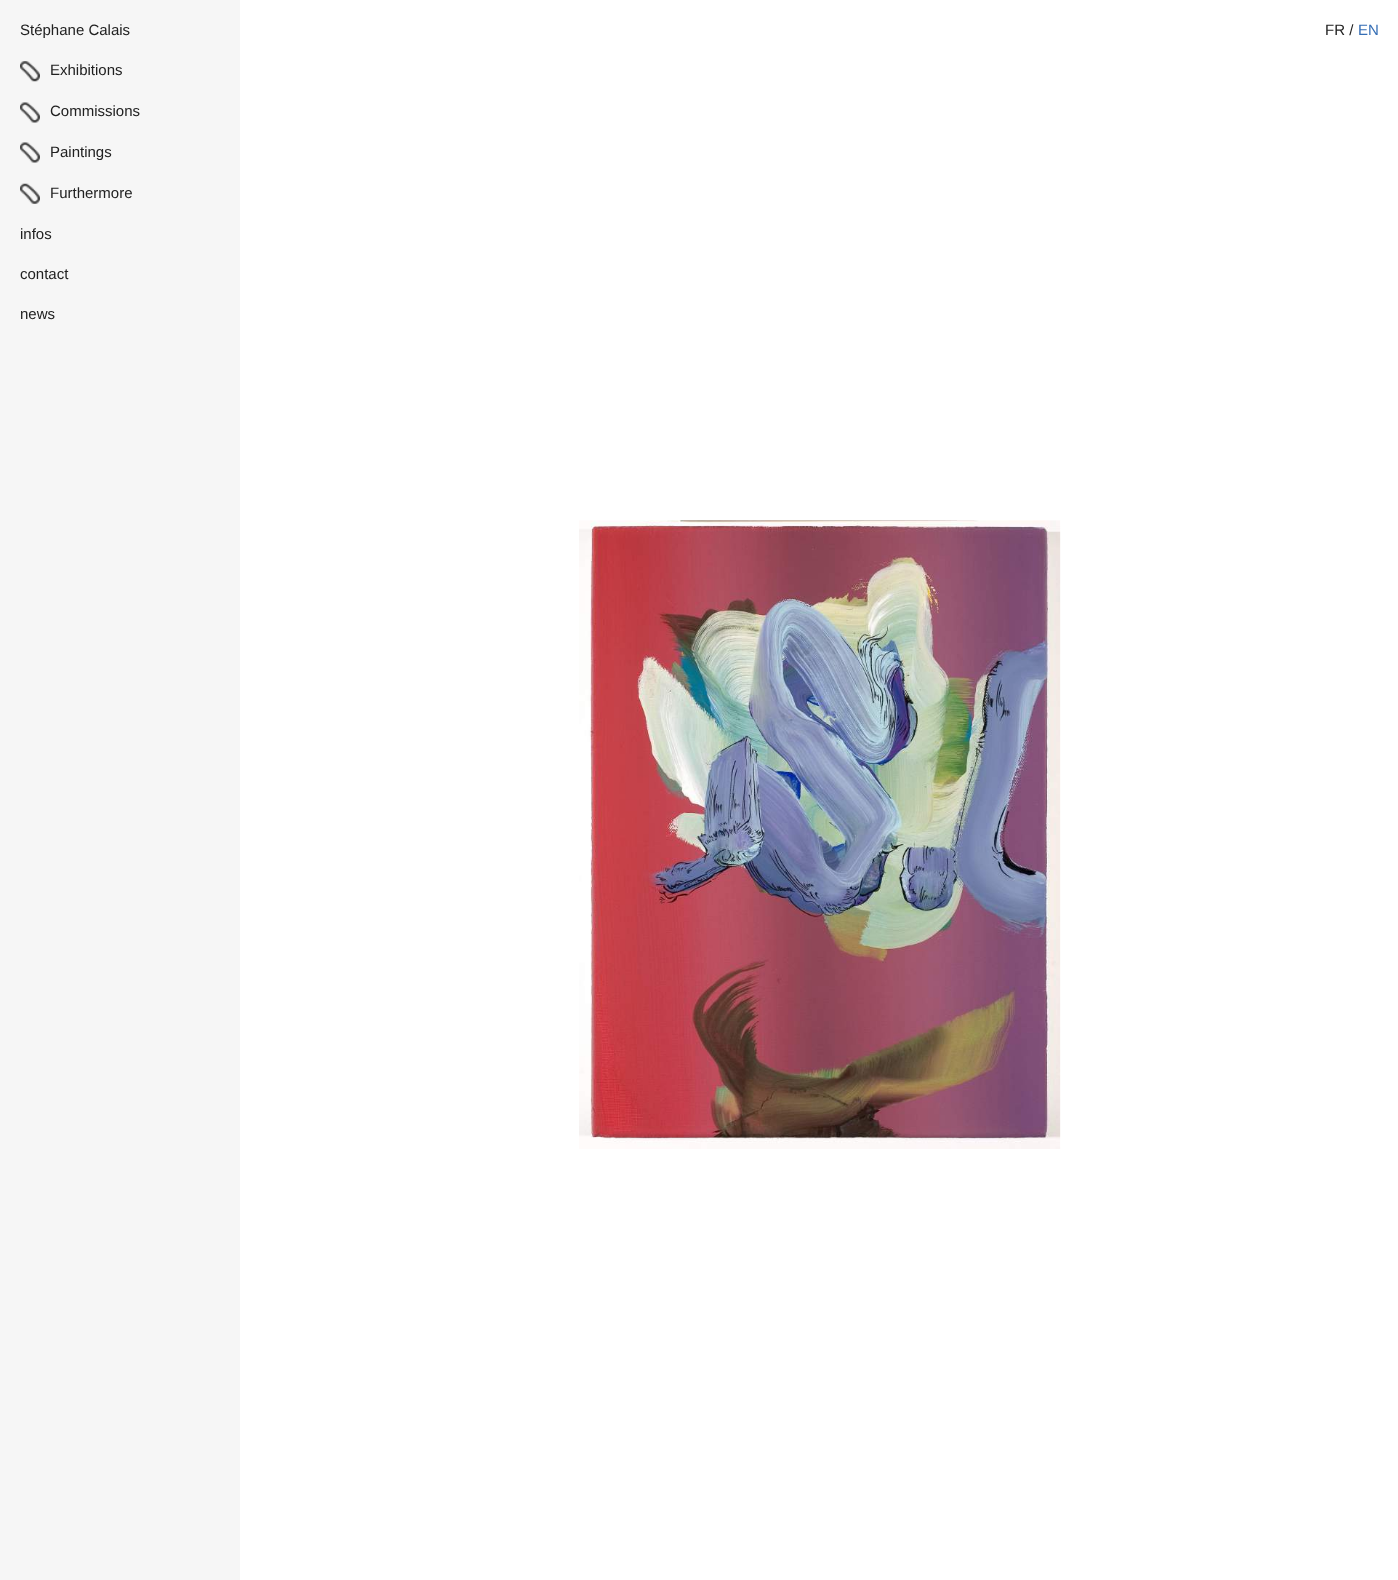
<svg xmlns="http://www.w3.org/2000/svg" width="1398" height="1580">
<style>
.a{font:15px Liberation Sans;fill:#212121}
.b{font:15px Liberation Sans;fill:#356eb5}
</style>
<rect width="100%" height="100%" fill="#fff"/>
<path fill="#f6f6f6" d="M0 0h240v1580H0z"/>
<image href="1.png" x="20" y="61" width="20" height="21"/>
<image href="2.png" x="20" y="102" width="20" height="21"/>
<image href="2.png" x="20" y="142" width="20" height="21"/>
<image href="3.png" x="20" y="183" width="20" height="21"/>
<image href="4.png" x="579" y="520" width="482" height="629"/>
<text class="a" x="20" y="35">Stéphane Calais</text>
<text class="a" x="1325" y="35">FR /</text>
<text class="b" x="1358" y="35">EN</text>
<text class="a" x="20" y="239">infos</text>
<text class="a" x="20" y="279">contact</text>
<text class="a" x="20" y="319">news</text>
<text class="a" x="50" y="75">Exhibitions</text>
<text class="a" x="50" y="116">Commissions</text>
<text class="a" x="50" y="157">Paintings</text>
<text class="a" x="50" y="198">Furthermore</text>
</svg>
